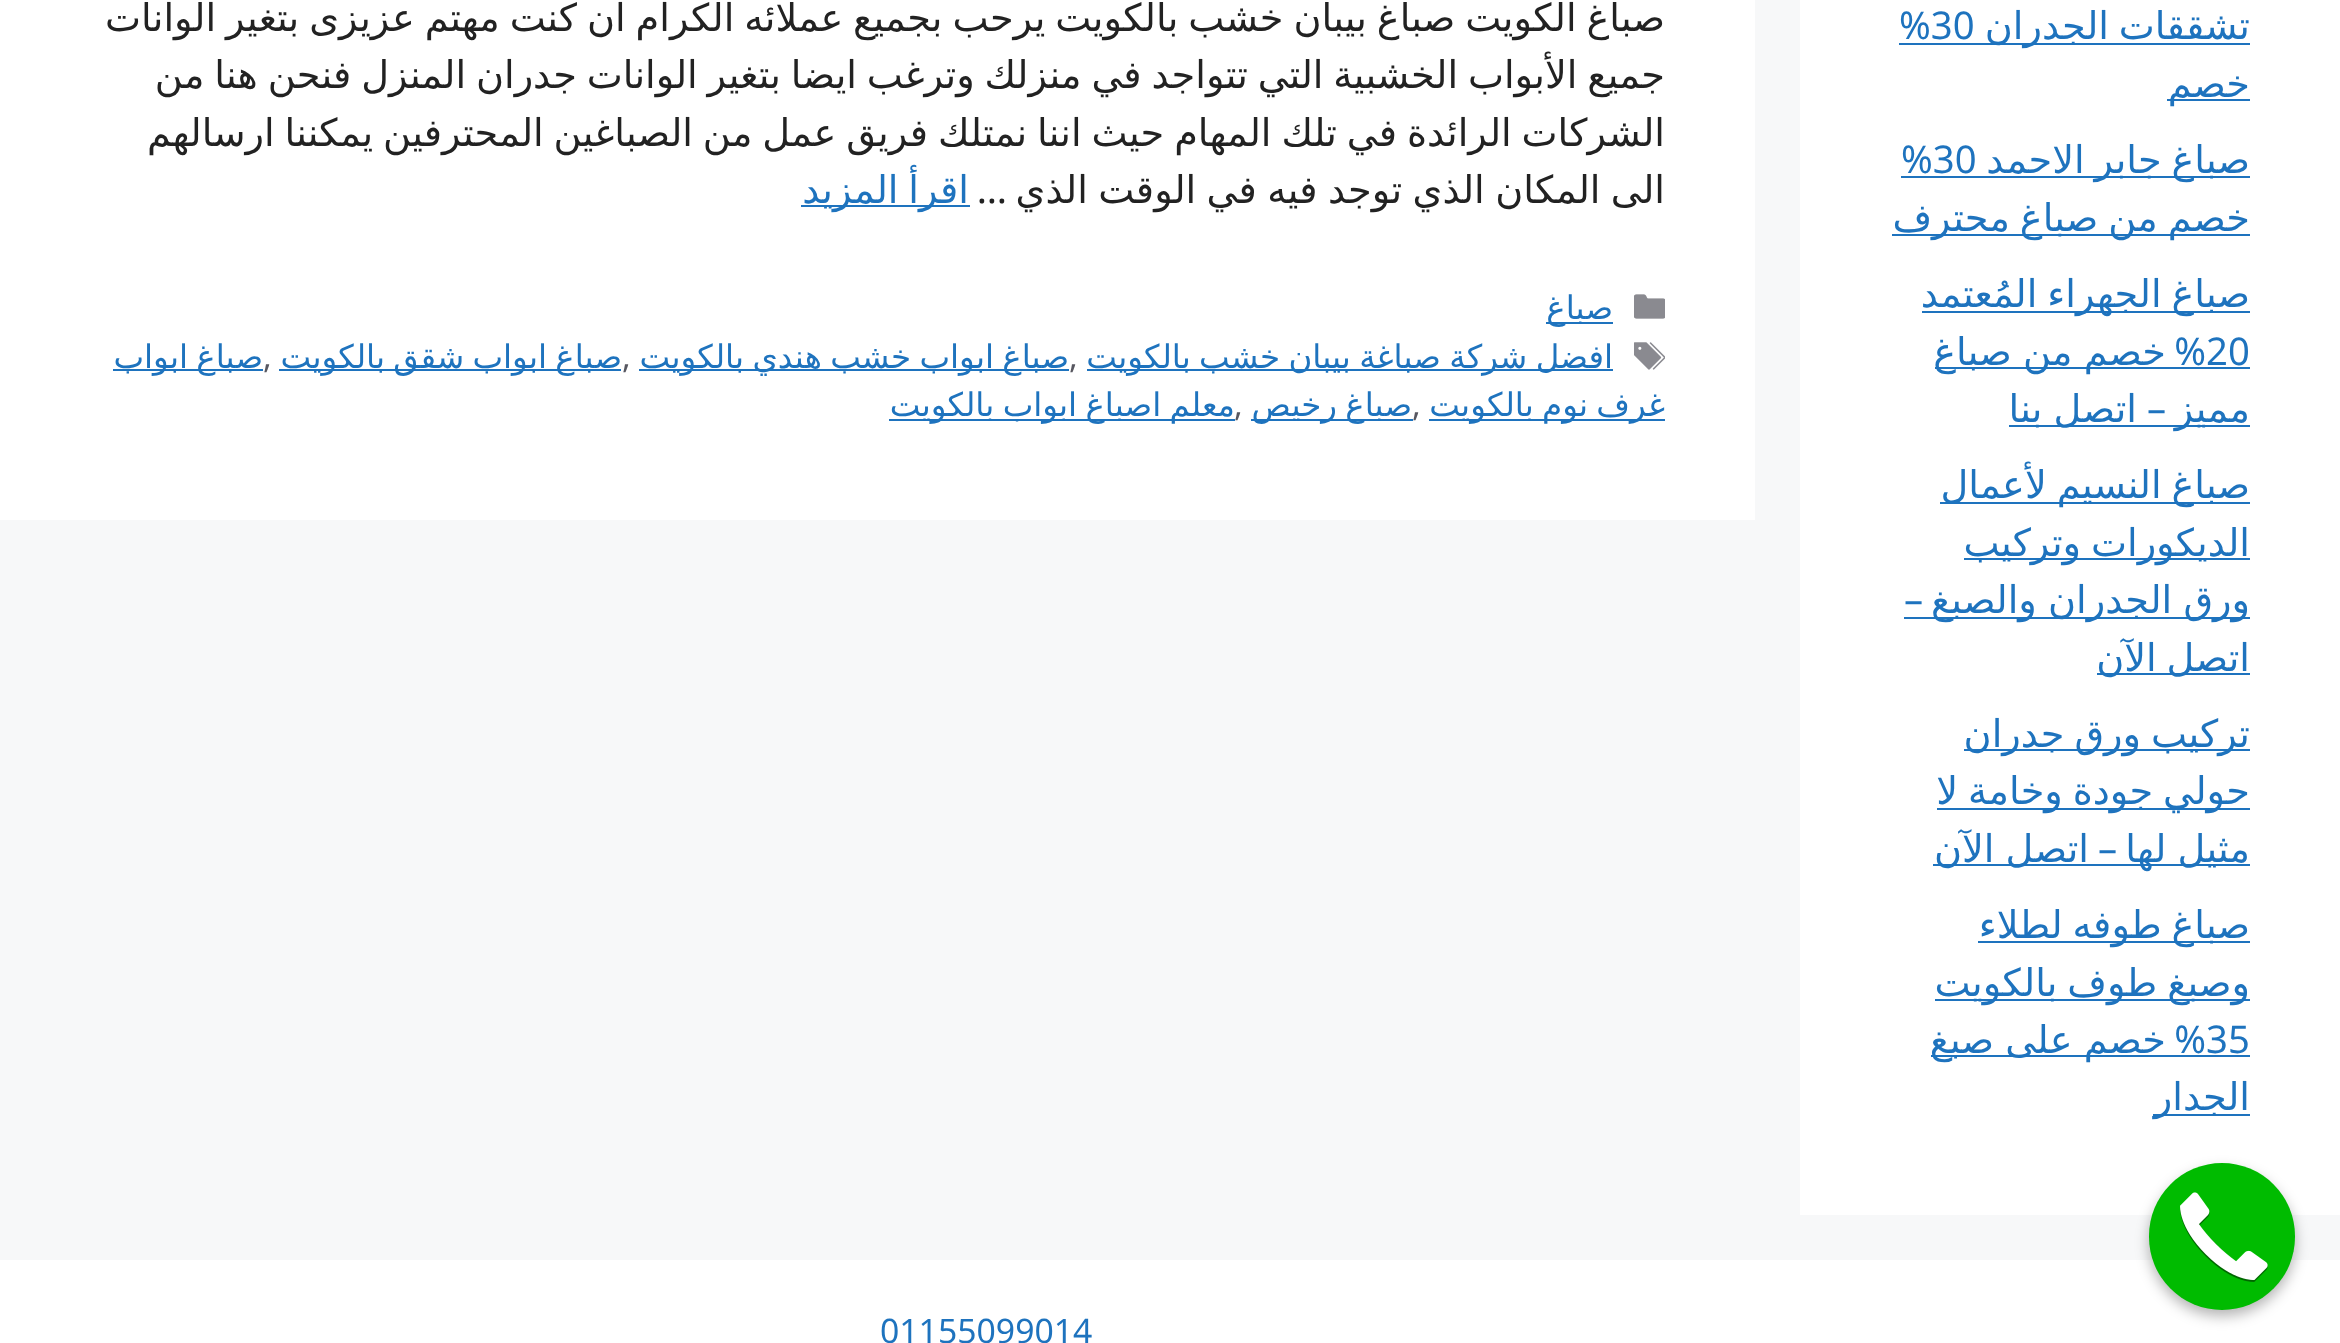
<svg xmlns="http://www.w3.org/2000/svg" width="2340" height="1343">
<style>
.a{font:38.25px DejaVu Sans;direction:rtl;fill:#1e73be}
.b{font:38.25px Noto Sans;fill:#1e73be}
.c{font:38.25px Noto Sans;direction:rtl;fill:#1e73be}
.d{font:38.25px DejaVu Sans;direction:rtl;fill:#222}
.e{font:38.25px Noto Sans;direction:rtl;fill:#222}
.f{font:32.5px DejaVu Sans;direction:rtl;fill:#1e73be}
.g{font:32.5px Noto Sans;fill:#575760}
.h{font:33.75px Noto Sans;fill:#1e73be}
</style>
<rect width="100%" height="100%" fill="#f7f8f9"/>
<path fill="#fff" d="M1800 0h540v1215H1800z"/>
<path fill="#1e73be" d="M1899 43h351v2H1899z"/>
<path fill="#1e73be" d="M2167 99h83v2H2167z"/>
<path fill="#1e73be" d="M1901 176h349v2H1901z"/>
<path fill="#1e73be" d="M1892 234h358v2H1892z"/>
<path fill="#1e73be" d="M1922 311h328v2H1922z"/>
<path fill="#1e73be" d="M1935 367h315v2H1935z"/>
<path fill="#1e73be" d="M2009 425h241v2H2009z"/>
<path fill="#1e73be" d="M1940 502h310v2H1940z"/>
<path fill="#1e73be" d="M1964 558h286v2H1964z"/>
<path fill="#1e73be" d="M1904 617h346v2H1904z"/>
<path fill="#1e73be" d="M2097 673h153v2H2097z"/>
<path fill="#1e73be" d="M1964 749h286v2H1964z"/>
<path fill="#1e73be" d="M1937 808h313v2H1937z"/>
<path fill="#1e73be" d="M1933 864h317v2H1933z"/>
<path fill="#1e73be" d="M1978 941h272v2H1978z"/>
<path fill="#1e73be" d="M1935 999h315v2H1935z"/>
<path fill="#1e73be" d="M1931 1055h319v2H1931z"/>
<path fill="#1e73be" d="M2153 1114h97v2H2153z"/>
<path fill="#fff" d="M0 0h1755v520H0z"/>
<path fill="#1e73be" d="M801 205h169v2H801z"/>
<image href="1.png" x="1634" y="294" width="31" height="25"/>
<path fill="#1e73be" d="M1546 322h67v2H1546z"/>
<image href="2.png" x="1634" y="342" width="31" height="28"/>
<path fill="#1e73be" d="M1087 369h526v2H1087z"/>
<path fill="#1e73be" d="M639 369h430v2H639z"/>
<path fill="#1e73be" d="M279 369h342v2H279z"/>
<path fill="#1e73be" d="M113 369h150v2H113z"/>
<path fill="#1e73be" d="M1429 419h236v2H1429z"/>
<path fill="#1e73be" d="M1251 419h162v2H1251z"/>
<path fill="#1e73be" d="M889 419h346v2H889z"/>
<path fill="#fff" d="M0 1260h2340v83H0z"/>
<rect fill="#0000004d" filter="blur(7px)" x="2149" y="1170" width="146" height="146" rx="73"/>
<rect fill="#0b0" x="2149" y="1163" width="146" height="147" rx="73"/>
<image href="3.png" x="2180" y="1192" width="88" height="90"/>
<text class="a" x="2250" y="39" word-spacing="-2.25">تشققات الجدران</text>
<text class="b" x="1899" y="39">%30</text>
<text class="a" x="2250" y="97">خصم</text>
<text class="a" x="2250" y="173" word-spacing="-2.25">صباغ جابر الاحمد</text>
<text class="b" x="1901" y="173">%30</text>
<text class="a" x="2250" y="231" word-spacing="-2.25">خصم من صباغ محترف</text>
<text class="a" x="2250" y="307" word-spacing="-2.25">صباغ الجهراء المُعتمد</text>
<text class="b" x="2206" y="365">20</text>
<text class="c" x="2206" y="365">%</text>
<text class="a" x="2166" y="365" word-spacing="-1">خصم من صباغ</text>
<text class="a" x="2250" y="422">مميز</text>
<text class="c" x="2166" y="422">–</text>
<text class="a" x="2137" y="422" word-spacing="-1">اتصل بنا</text>
<text class="a" x="2250" y="498" word-spacing="-2.25">صباغ النسيم لأعمال</text>
<text class="a" x="2250" y="556" word-spacing="-2.25">الديكورات وتركيب</text>
<text class="a" x="2250" y="613" word-spacing="-1">ورق الجدران والصبغ</text>
<text class="c" x="1923" y="613">–</text>
<text class="a" x="2250" y="671" word-spacing="-2.25">اتصل الآن</text>
<text class="a" x="2250" y="747" word-spacing="-2.25">تركيب ورق جدران</text>
<text class="a" x="2250" y="804" word-spacing="-2.25">حولي جودة وخامة لا</text>
<text class="a" x="2250" y="862" word-spacing="-1">مثيل لها</text>
<text class="c" x="2117" y="862">–</text>
<text class="a" x="2089" y="862" word-spacing="-1">اتصل الآن</text>
<text class="a" x="2250" y="938" word-spacing="-2.25">صباغ طوفه لطلاء</text>
<text class="a" x="2250" y="996" word-spacing="-2.25">وصبغ طوف بالكويت</text>
<text class="b" x="2206" y="1053">35</text>
<text class="c" x="2206" y="1053">%</text>
<text class="a" x="2166" y="1053" word-spacing="-1">خصم على صبغ</text>
<text class="a" x="2250" y="1110">الجدار</text>
<text class="d" x="1665" y="31" word-spacing="-2.25">صباغ الكويت صباغ بيبان خشب بالكويت يرحب بجميع عملائه الكرام ان كنت مهتم عزيزى بتغير الوانات</text>
<text class="d" x="1665" y="88" word-spacing="-2.25">جميع الأبواب الخشبية التي تتواجد في منزلك وترغب ايضا بتغير الوانات جدران المنزل فنحن هنا من</text>
<text class="d" x="1665" y="146" word-spacing="-2.25">الشركات الرائدة في تلك المهام حيث اننا نمتلك فريق عمل من الصباغين المحترفين يمكننا ارسالهم</text>
<text class="d" x="1665" y="203" word-spacing="-1.75">الى المكان الذي توجد فيه في الوقت الذي</text>
<text class="e" x="1007" y="203">…</text>
<text class="a" x="969" y="203" word-spacing="-2.25">اقرأ المزيد</text>
<text class="f" x="1613" y="319">صباغ</text>
<text class="f" x="1613" y="368" word-spacing="-2">افضل شركة صباغة بيبان خشب بالكويت</text>
<text class="g" x="263" y="368">,</text>
<text class="f" x="263" y="368" word-spacing="-2">صباغ ابواب</text>
<text class="g" x="1069" y="368">,</text>
<text class="f" x="1069" y="368" word-spacing="-2">صباغ ابواب خشب هندي بالكويت</text>
<text class="g" x="622" y="368">,</text>
<text class="f" x="622" y="368" word-spacing="-2">صباغ ابواب شقق بالكويت</text>
<text class="f" x="1665" y="416" word-spacing="-2">غرف نوم بالكويت</text>
<text class="f" x="1412" y="416" word-spacing="-2">صباغ رخيص</text>
<text class="g" x="1412" y="416">,</text>
<text class="g" x="1234" y="416">,</text>
<text class="f" x="1235" y="416" word-spacing="-2">معلم اصباغ ابواب بالكويت</text>
<text class="h" x="880" y="1343">01155099014</text>
</svg>
